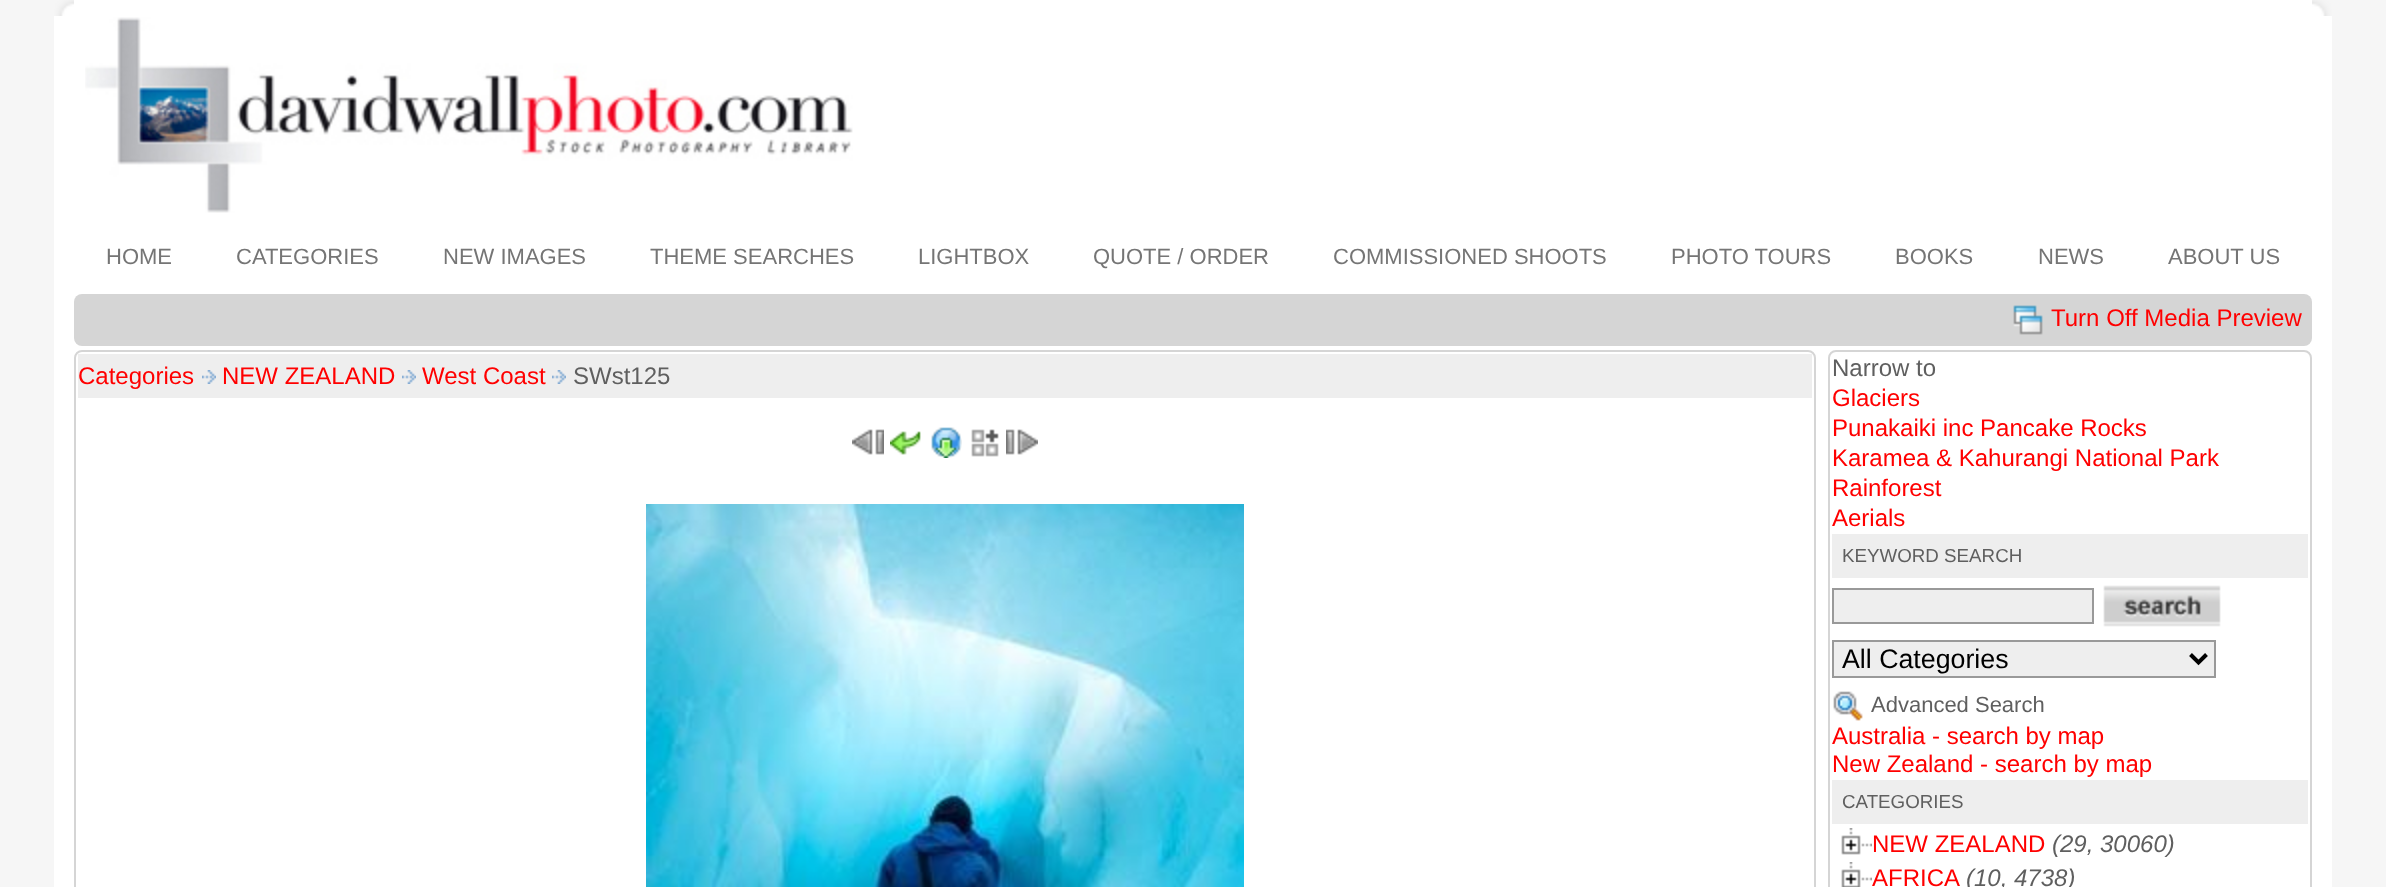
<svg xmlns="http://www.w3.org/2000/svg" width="2386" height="887">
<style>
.a{font:22px Liberation Sans;fill:#757575}
.b{font:24px Liberation Sans;fill:#f00}
.c{font:24px Liberation Sans;fill:#5f5f5f}
.d{font:18.75px Liberation Sans;fill:#5f5f5f}
.e{font:26.75px Liberation Sans;fill:#000}
.f{font:22px Liberation Sans;fill:#5f5f5f}
.g{font:italic 24px Liberation Sans;fill:#5f5f5f}
</style>
<rect width="100%" height="100%" fill="#f6f6f6"/>
<path fill="#fff" d="M54 0h2278v887H54z"/>
<image href="1.png" x="54" y="0" width="20" height="16"/>
<image href="2.png" x="2312" y="0" width="20" height="16"/>
<image href="3.png" x="85" y="17" width="768" height="196"/>
<rect fill="#d5d5d5" x="74" y="294" width="2238" height="52" rx="8"/>
<image href="4.png" x="2013" y="305" width="30" height="30"/>
<rect fill="none" stroke="#d5d5d5" stroke-width="2" x="75" y="351" width="1740" height="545" rx="7"/>
<path fill="#eee" d="M78 354h1734v44H78z"/>
<image href="5.png" x="202" y="370" width="14" height="14"/>
<image href="5.png" x="402" y="370" width="14" height="14"/>
<image href="5.png" x="552" y="370" width="14" height="14"/>
<image href="6.png" x="852" y="429" width="32" height="26"/>
<image href="7.png" x="890" y="431" width="31" height="24"/>
<image href="8.png" x="931" y="427" width="31" height="31"/>
<image href="9.png" x="971" y="429" width="28" height="28"/>
<image href="10.png" x="1006" y="429" width="32" height="26"/>
<image href="11.png" x="646" y="504" width="598" height="383"/>
<rect fill="none" stroke="#d5d5d5" stroke-width="2" x="1829" y="351" width="482" height="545" rx="7"/>
<path fill="#eee" d="M1832 534h476v44H1832z"/>
<path fill="#eee" stroke="#999" stroke-width="2" d="M1833 589h260v34H1833z"/>
<image href="12.png" x="2103" y="585" width="118" height="42"/>
<path fill="#eee" stroke="#999" stroke-width="2" d="M1833 641h382v36H1833z"/>
<path fill="none" stroke="#000" stroke-width="4" d="M2190.5 654.5l8 8l8-8"/>
<image href="13.png" x="1833" y="691" width="30" height="30"/>
<path fill="#eee" d="M1832 780h476v44H1832z"/>
<image href="14.png" x="1841" y="828" width="31" height="27"/>
<image href="15.png" x="1841" y="862" width="31" height="25"/>
<text class="a" x="106" y="264">HOME</text>
<text class="a" x="236" y="264">CATEGORIES</text>
<text class="a" x="443" y="264">NEW IMAGES</text>
<text class="a" x="650" y="264">THEME SEARCHES</text>
<text class="a" x="918" y="264">LIGHTBOX</text>
<text class="a" x="1093" y="264">QUOTE / ORDER</text>
<text class="a" x="1333" y="264">COMMISSIONED SHOOTS</text>
<text class="a" x="1671" y="264">PHOTO TOURS</text>
<text class="a" x="1895" y="264">BOOKS</text>
<text class="a" x="2038" y="264">NEWS</text>
<text class="a" x="2168" y="264">ABOUT US</text>
<text class="b" x="2051" y="326">Turn Off Media Preview</text>
<text class="b" x="78" y="384">Categories</text>
<text class="b" x="222" y="384">NEW ZEALAND</text>
<text class="b" x="422" y="384">West Coast</text>
<text class="c" x="573" y="384">SWst125</text>
<text class="c" x="1832" y="376">Narrow to</text>
<text class="b" x="1832" y="406">Glaciers</text>
<text class="b" x="1832" y="436">Punakaiki inc Pancake Rocks</text>
<text class="b" x="1832" y="466">Karamea &amp; Kahurangi National Park</text>
<text class="b" x="1832" y="496">Rainforest</text>
<text class="b" x="1832" y="526">Aerials</text>
<text class="d" x="1842" y="562">KEYWORD SEARCH</text>
<text class="e" x="1842" y="668">All Categories</text>
<text class="f" x="1871" y="712">Advanced Search</text>
<text class="b" x="1832" y="744">Australia - search by map</text>
<text class="b" x="1832" y="772">New Zealand - search by map</text>
<text class="d" x="1842" y="808">CATEGORIES</text>
<text class="b" x="1872" y="852">NEW ZEALAND</text>
<text class="g" x="2052" y="852">(29, 30060)</text>
<text class="b" x="1872" y="886">AFRICA</text>
<text class="g" x="1966" y="886">(10, 4738)</text>
</svg>
